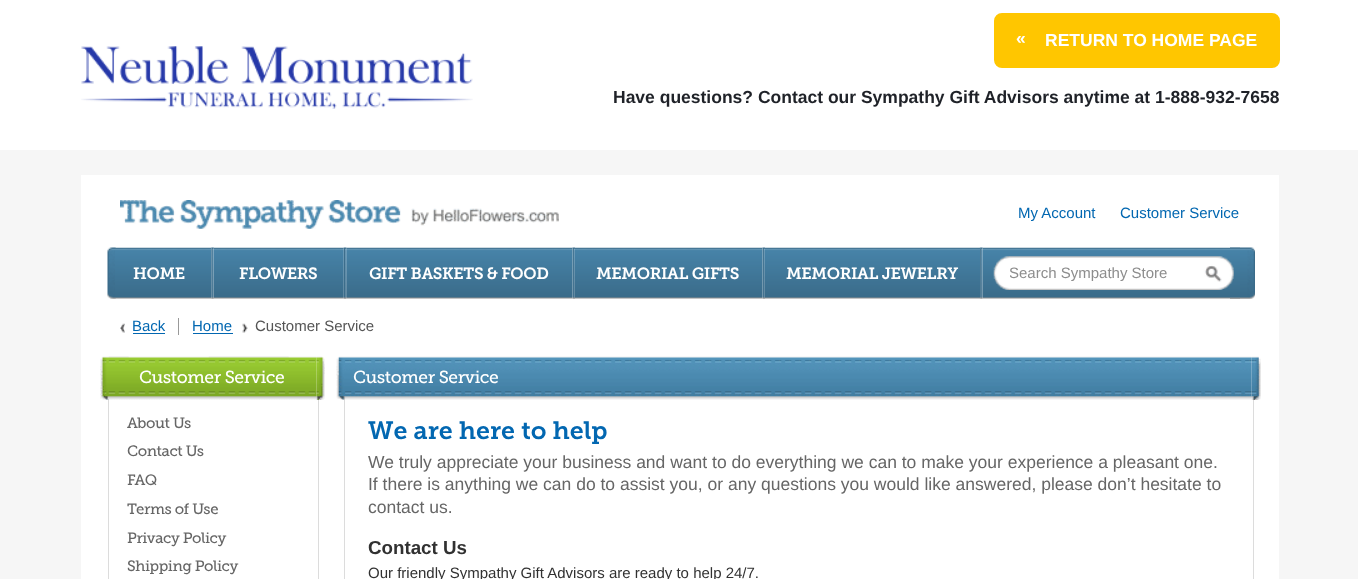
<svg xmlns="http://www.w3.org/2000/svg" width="1358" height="579">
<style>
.a{font:bold 17.5px Liberation Sans;fill:#fff}
.b{font:bold 17.5px Liberation Sans;fill:#1f2228}
.c{font:15px Liberation Sans;fill:#0267b1}
.d{font:600 16.25px Museo Slab;letter-spacing:-0.4px;fill:#fff}
.e{font:15px Liberation Sans;fill:#8d8d8d}
.f{font:15px Liberation Sans;fill:#555}
.g{font:17.5px 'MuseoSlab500';letter-spacing:-0.4px;fill:#fff}
.h{font:15px 'MuseoSlab500';letter-spacing:-0.4px;fill:#666}
.i{font:600 25px Museo Slab;fill:#0267b1}
.j{font:17.5px Liberation Sans;fill:#666}
.k{font:bold 18.75px Liberation Sans;fill:#313131}
.l{font:15px Liberation Sans;fill:#313131}
</style>
<defs>
<clipPath id="clip1"><path d="M1010 264h188v17H1010z"/></clipPath>
</defs>
<rect width="100%" height="100%" fill="#f6f6f6"/>
<path fill="#fff" d="M0 0h1358v150H0z"/>
<image href="1.png" x="81" y="46" width="392" height="63"/>
<rect fill="#ffc600" stroke="#ffc600" stroke-width="3" x="995.5" y="14.5" width="283" height="52" rx="6.5"/>
<path fill="#fff" d="M81 175h1198v404H81z"/>
<image href="2.png" x="120" y="200" width="439" height="29"/>
<image href="3.png" x="107" y="247" width="9" height="52"/>
<image href="4.png" x="1230" y="247" width="25" height="52"/>
<image href="5.png" x="211" y="247" width="3" height="52"/>
<image href="6.png" x="115" y="247" width="97" height="52"/>
<image href="7.png" x="343" y="247" width="4" height="52"/>
<image href="8.png" x="213" y="247" width="131" height="52"/>
<image href="9.png" x="572" y="247" width="3" height="52"/>
<image href="10.png" x="346" y="247" width="227" height="52"/>
<image href="9.png" x="762" y="247" width="3" height="52"/>
<image href="11.png" x="575" y="247" width="188" height="52"/>
<image href="12.png" x="979" y="247" width="4" height="52"/>
<image href="13.png" x="765" y="247" width="215" height="52"/>
<image href="14.png" x="982" y="247" width="258" height="52"/>
<image href="15.png" x="993" y="256" width="241" height="34"/>
<image href="16.png" x="120" y="323" width="5" height="10"/>
<path fill="#999" d="M178 318h1v17H178z"/>
<path fill="#0267b1" d="M133 333h32v1H133z"/>
<path fill="#0267b1" d="M193 333h40v1H193z"/>
<image href="17.png" x="242" y="323" width="6" height="10"/>
<rect fill="none" stroke="#dcdcdc" x="108.5" y="358.5" width="210" height="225" rx="3.5"/>
<image href="18.png" x="316" y="356" width="9" height="44"/>
<image href="19.png" x="100" y="356" width="217" height="44"/>
<rect fill="none" stroke="#dcdcdc" x="344.5" y="358.5" width="909" height="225" rx="3.5"/>
<image href="20.png" x="1251" y="356" width="10" height="44"/>
<image href="21.png" x="336" y="356" width="916" height="44"/>
<text class="a" x="1016" y="44">«</text>
<text class="a" x="1045" y="46">RETURN TO HOME PAGE</text>
<text class="b" x="613" y="103">Have questions? Contact our Sympathy Gift Advisors anytime at 1-888-932-7658</text>
<text class="c" x="1018" y="218">My Account</text>
<text class="c" x="1120" y="218">Customer Service</text>
<text class="d" x="133" y="279">HOME</text>
<text class="d" x="239" y="279">FLOWERS</text>
<text class="d" x="369" y="279">GIFT BASKETS &amp; FOOD</text>
<text class="d" x="596" y="279">MEMORIAL GIFTS</text>
<text class="d" x="786" y="279">MEMORIAL JEWELRY</text>
<g clip-path="url(#clip1)">
<text class="e" x="1009" y="278">Search Sympathy Store</text>
</g>
<text class="c" x="132" y="331">Back</text>
<text class="c" x="192" y="331">Home</text>
<text class="f" x="255" y="331">Customer Service</text>
<text class="g" x="139" y="383">Customer Service</text>
<text class="h" x="127" y="428">About Us</text>
<text class="h" x="127" y="456">Contact Us</text>
<text class="h" x="127" y="485">FAQ</text>
<text class="h" x="127" y="514">Terms of Use</text>
<text class="h" x="127" y="543">Privacy Policy</text>
<text class="h" x="127" y="571">Shipping Policy</text>
<text class="g" x="353" y="383">Customer Service</text>
<text class="i" x="368" y="439">We are here to help</text>
<text class="j" x="368" y="468">We truly appreciate your business and want to do everything we can to make your experience a pleasant one.</text>
<text class="j" x="368" y="490">If there is anything we can do to assist you, or any questions you would like answered, please don’t hesitate to</text>
<text class="j" x="368" y="513">contact us.</text>
<text class="k" x="368" y="554">Contact Us</text>
<text class="l" x="368" y="578">Our friendly Sympathy Gift Advisors are ready to help 24/7.</text>
</svg>
